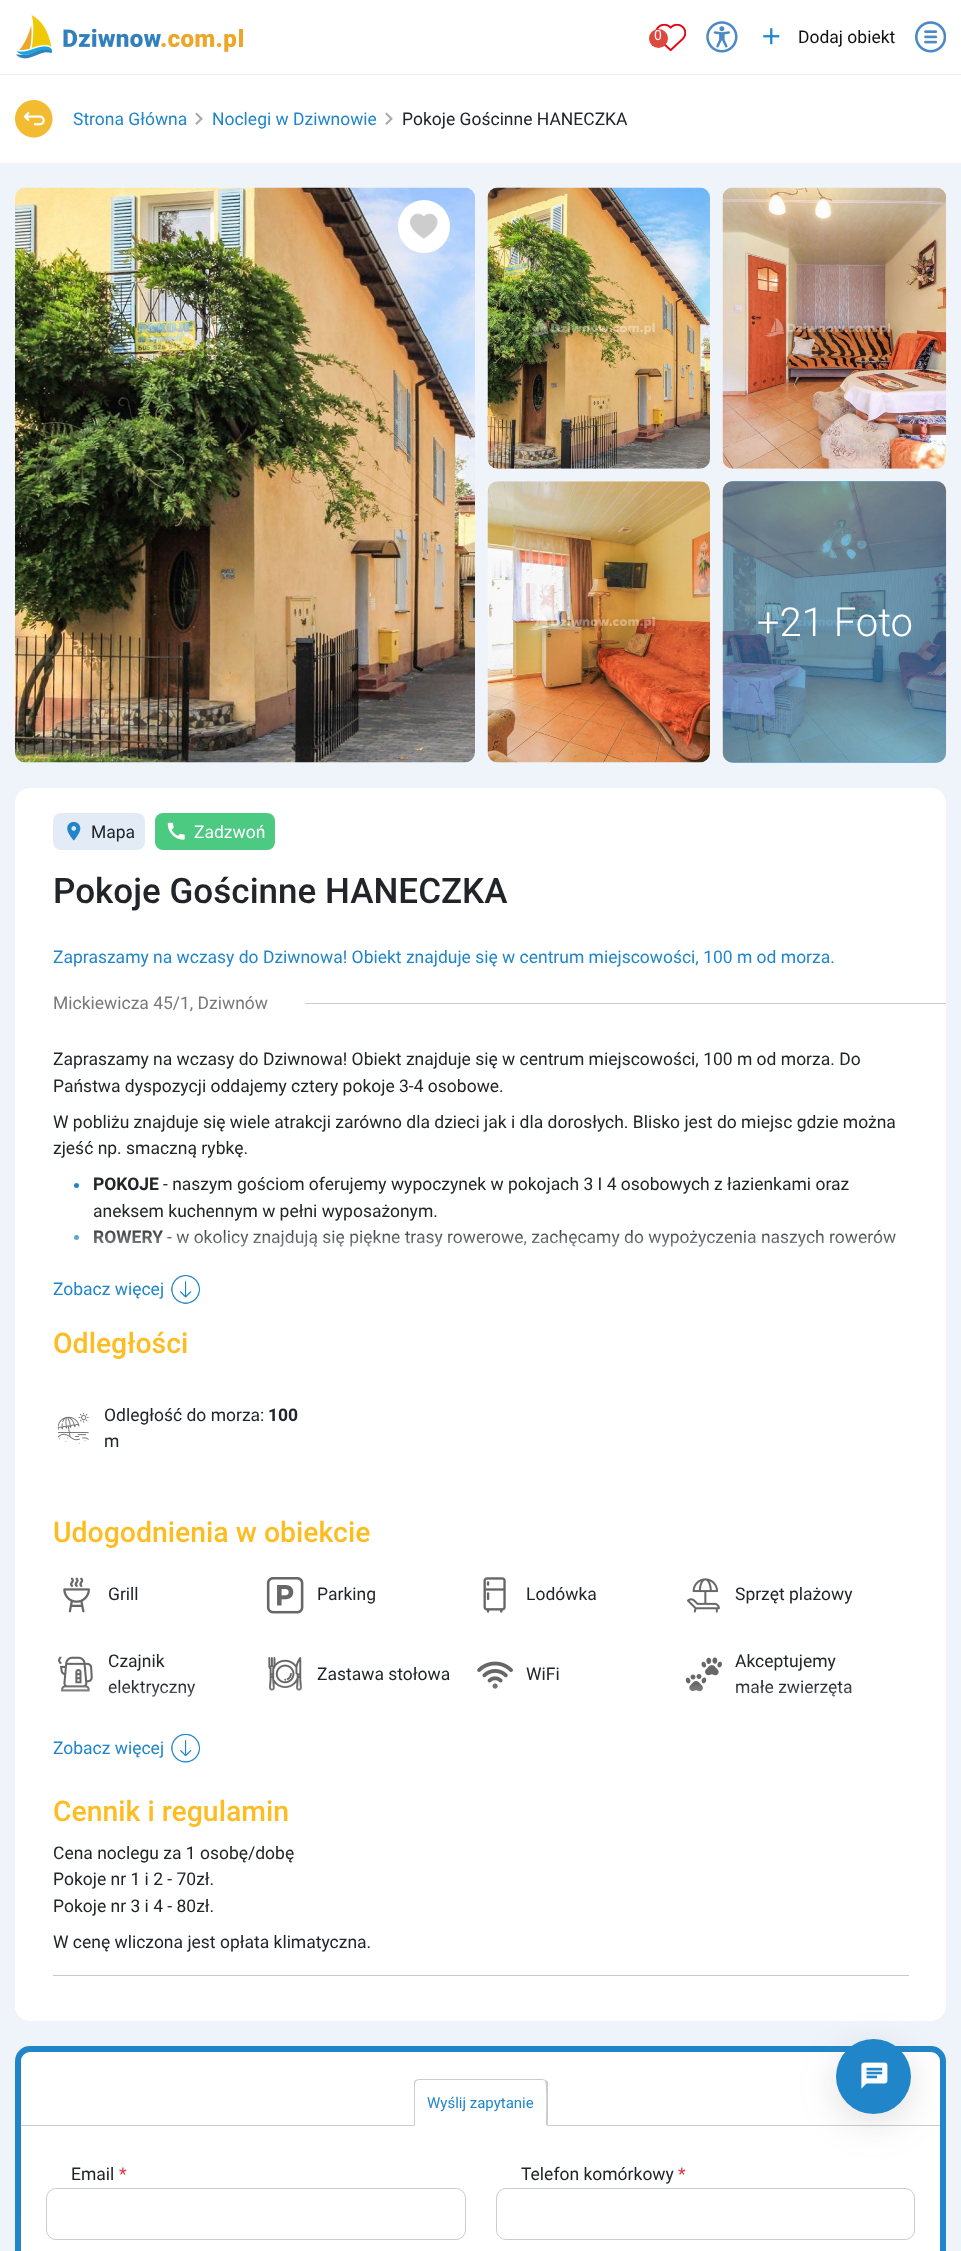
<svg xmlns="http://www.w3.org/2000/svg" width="961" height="2251">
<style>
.a{font:14px Roboto;fill:#fff}
.b{font:17.5px Roboto;fill:#101010}
.c{font:17.5px Roboto;fill:#2086c9}
.d{font:17.5px Roboto;fill:#212529}
.e{font:300 40px Roboto;fill:#fff}
.f{font:17.5px Roboto;fill:#fff}
.g{font:500 35px Roboto;fill:#212529}
.h{font:17.5px Roboto;fill:#797979}
.i{font:bold 17.5px Roboto;fill:#212529}
.j{font:500 28.4px Roboto;fill:#fdbd22}
.k{font:15px Roboto;fill:#2086c9}
.l{font:17.5px Roboto;fill:#dc3545}
</style>
<defs>
<linearGradient id="g1" gradientUnits="userSpaceOnUse" x1="481" y1="1224" x2="481" y2="1274"><stop offset="0" stop-color="#fff" stop-opacity="0"/><stop offset="0.5" stop-color="#fff" stop-opacity="0.5"/><stop offset="0.8" stop-color="#fff" stop-opacity="0.8"/><stop offset="1" stop-color="#fff"/></linearGradient>
<linearGradient id="g2" gradientUnits="userSpaceOnUse" x1="481" y1="1683" x2="481" y2="1733"><stop offset="0" stop-color="#fff" stop-opacity="0"/><stop offset="0.5" stop-color="#fff" stop-opacity="0.5"/><stop offset="0.8" stop-color="#fff" stop-opacity="0.8"/><stop offset="1" stop-color="#fff"/></linearGradient>
</defs>
<rect width="100%" height="100%" fill="#eff4fb"/>
<path fill="#fff" d="M0 0h961v74H0z"/>
<image href="1.png" x="16" y="15" width="227" height="44"/>
<image href="2.png" x="655" y="23" width="31" height="28"/>
<circle fill="#dd483f" cx="658.5" cy="38.5" r="9.5"/>
<image href="3.png" x="706" y="21" width="32" height="32"/>
<image href="4.png" x="763" y="28" width="17" height="17"/>
<image href="5.png" x="915" y="21" width="31" height="32"/>
<path fill="#fff" d="M0 75h961v88H0z"/>
<path fill="#f0f0f0" d="M0 74h961v1H0z"/>
<image href="6.png" x="15" y="100" width="38" height="38"/>
<image href="7.png" x="195" y="112" width="8" height="13"/>
<image href="7.png" x="385" y="112" width="8" height="13"/>
<image href="8.png" x="15" y="187" width="460" height="576"/>
<rect fill="#fff" x="398" y="200" width="52" height="53" rx="26"/>
<image href="9.png" x="410" y="213" width="28" height="26"/>
<image href="10.png" x="487" y="187" width="223" height="282"/>
<image href="11.png" x="722" y="187" width="225" height="282"/>
<image href="12.png" x="487" y="481" width="223" height="282"/>
<image href="13.png" x="722" y="481" width="225" height="282"/>
<rect fill="#2086cb99" x="723" y="481" width="223" height="282" rx="10"/>
<rect fill="#fff" x="15" y="788" width="931" height="1233" rx="15"/>
<rect fill="#e3ebf6" x="53" y="813" width="92" height="37" rx="8"/>
<image href="14.png" x="67" y="821" width="14" height="20"/>
<rect fill="#4dca81" x="155" y="813" width="120" height="37" rx="8"/>
<image href="15.png" x="167" y="822" width="18" height="18"/>
<path fill="#ccc" d="M305 1003h641v1H305z"/>
<circle fill="#2086c9" cx="76.5" cy="1185.5" r="2.5"/>
<circle fill="#2086c9" cx="76.5" cy="1237.5" r="2.5"/>
<image href="16.png" x="171" y="1275" width="29" height="29"/>
<image href="17.png" x="58" y="1413" width="31" height="31"/>
<image href="18.png" x="63" y="1577" width="27" height="36"/>
<image href="19.png" x="266" y="1577" width="38" height="37"/>
<image href="20.png" x="483" y="1577" width="23" height="36"/>
<image href="21.png" x="687" y="1578" width="33" height="35"/>
<image href="22.png" x="58" y="1656" width="35" height="36"/>
<image href="23.png" x="268" y="1657" width="34" height="34"/>
<image href="24.png" x="477" y="1661" width="36" height="28"/>
<image href="25.png" x="685" y="1657" width="37" height="35"/>
<image href="26.png" x="171" y="1733" width="29" height="30"/>
<path fill="#c8c9ca" d="M53 1975h856v1H53z"/>
<rect fill="#fff" stroke="#2086c9" stroke-width="6" x="18" y="2049" width="925" height="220" rx="12"/>
<path fill="#ccc" d="M21 2125h919v1H21z"/>
<path fill="#fff" d="M419 2079h124c3 0 5 2 5 5v42h-134v-42c0-3 2-5 5-5z"/>
<path fill="#ccc" d="M419 2079c-1 0-3 1-4 1l1 1l3-1h123c1 0 2 0 3 1l1-1l-4-1z"/>
<path fill="#ccc" d="M546 2080l2 2v44l-2-1c0-6 1-41-1-44z"/>
<path fill="#fff" d="M547 2126h-133l1-1h131z"/>
<path fill="#ccc" d="M415 2080c-1 1-1 2-1 4v42l1-1v-41c0-1 1-2 1-3z"/>
<rect fill="none" stroke="#ccc" x="46.5" y="2188.5" width="419" height="51" rx="9.5"/>
<rect fill="none" stroke="#ccc" x="496.5" y="2188.5" width="418" height="51" rx="9.5"/>
<rect fill="#64646f33" filter="blur(18px)" x="836" y="2048" width="75" height="75" rx="37.5"/>
<circle fill="#2086c9" cx="873.5" cy="2076.5" r="37.5"/>
<image href="27.png" x="861" y="2062" width="27" height="27"/>
<text class="a" x="654" y="40">0</text>
<text class="b" x="798" y="43">Dodaj obiekt</text>
<text class="c" x="73" y="125">Strona Główna</text>
<text class="c" x="212" y="125">Noclegi w Dziwnowie</text>
<text class="d" x="402" y="125">Pokoje Gościnne HANECZKA</text>
<text class="e" x="757" y="636">+21 Foto</text>
<text class="d" x="91" y="838">Mapa</text>
<text class="f" x="194" y="838">Zadzwoń</text>
<text class="g" x="53" y="903">Pokoje Gościnne HANECZKA</text>
<text class="c" x="53" y="963">Zapraszamy na wczasy do Dziwnowa! Obiekt znajduje się w centrum miejscowości, 100 m od morza.</text>
<text class="h" x="53" y="1009">Mickiewicza 45/1, Dziwnów</text>
<text class="d" x="53" y="1065">Zapraszamy na wczasy do Dziwnowa! Obiekt znajduje się w centrum miejscowości, 100 m od morza. Do</text>
<text class="d" x="53" y="1092">Państwa dyspozycji oddajemy cztery pokoje 3-4 osobowe.</text>
<text class="d" x="53" y="1128">W pobliżu znajduje się wiele atrakcji zarówno dla dzieci jak i dla dorosłych. Blisko jest do miejsc gdzie można</text>
<text class="d" x="53" y="1154">zjeść np. smaczną rybkę.</text>
<text class="i" x="93" y="1190">POKOJE</text>
<text class="d" x="163" y="1190">- naszym gościom oferujemy wypoczynek w pokojach 3 I 4 osobowych z łazienkami oraz</text>
<text class="d" x="93" y="1217">aneksem kuchennym w pełni wyposażonym.</text>
<text class="i" x="93" y="1243">ROWERY</text>
<text class="d" x="167" y="1243">- w okolicy znajdują się piękne trasy rowerowe, zachęcamy do wypożyczenia naszych rowerów</text>
<path fill="url(#g1)" d="M74 1229h822v18H74z"/>
<text class="c" x="53" y="1295">Zobacz więcej</text>
<text class="j" x="53" y="1353">Odległości</text>
<text class="d" x="104" y="1421">Odległość do morza:</text>
<text class="i" x="268" y="1421">100</text>
<text class="d" x="104" y="1447">m</text>
<text class="j" x="53" y="1542">Udogodnienia w obiekcie</text>
<text class="d" x="108" y="1600">Grill</text>
<text class="d" x="317" y="1600">Parking</text>
<text class="d" x="526" y="1600">Lodówka</text>
<text class="d" x="735" y="1600">Sprzęt plażowy</text>
<text class="d" x="108" y="1667">Czajnik</text>
<text class="d" x="108" y="1693">elektryczny</text>
<text class="d" x="317" y="1680">Zastawa stołowa</text>
<text class="d" x="526" y="1680">WiFi</text>
<text class="d" x="735" y="1667">Akceptujemy</text>
<text class="d" x="735" y="1693">małe zwierzęta</text>
<path fill="url(#g2)" d="M61 1684h791v13H61z"/>
<text class="c" x="53" y="1754">Zobacz więcej</text>
<text class="j" x="53" y="1821">Cennik i regulamin</text>
<text class="d" x="53" y="1859">Cena noclegu za 1 osobę/dobę</text>
<text class="d" x="53" y="1885">Pokoje nr 1 i 2 - 70zł.</text>
<text class="d" x="53" y="1912">Pokoje nr 3 i 4 - 80zł.</text>
<text class="d" x="53" y="1948">W cenę wliczona jest opłata klimatyczna.</text>
<text class="k" x="427" y="2108">Wyślij zapytanie</text>
<text class="d" x="71" y="2180">Email</text>
<text class="l" x="119" y="2180">*</text>
<text class="d" x="521" y="2180">Telefon komórkowy</text>
<text class="l" x="678" y="2180">*</text>
</svg>
